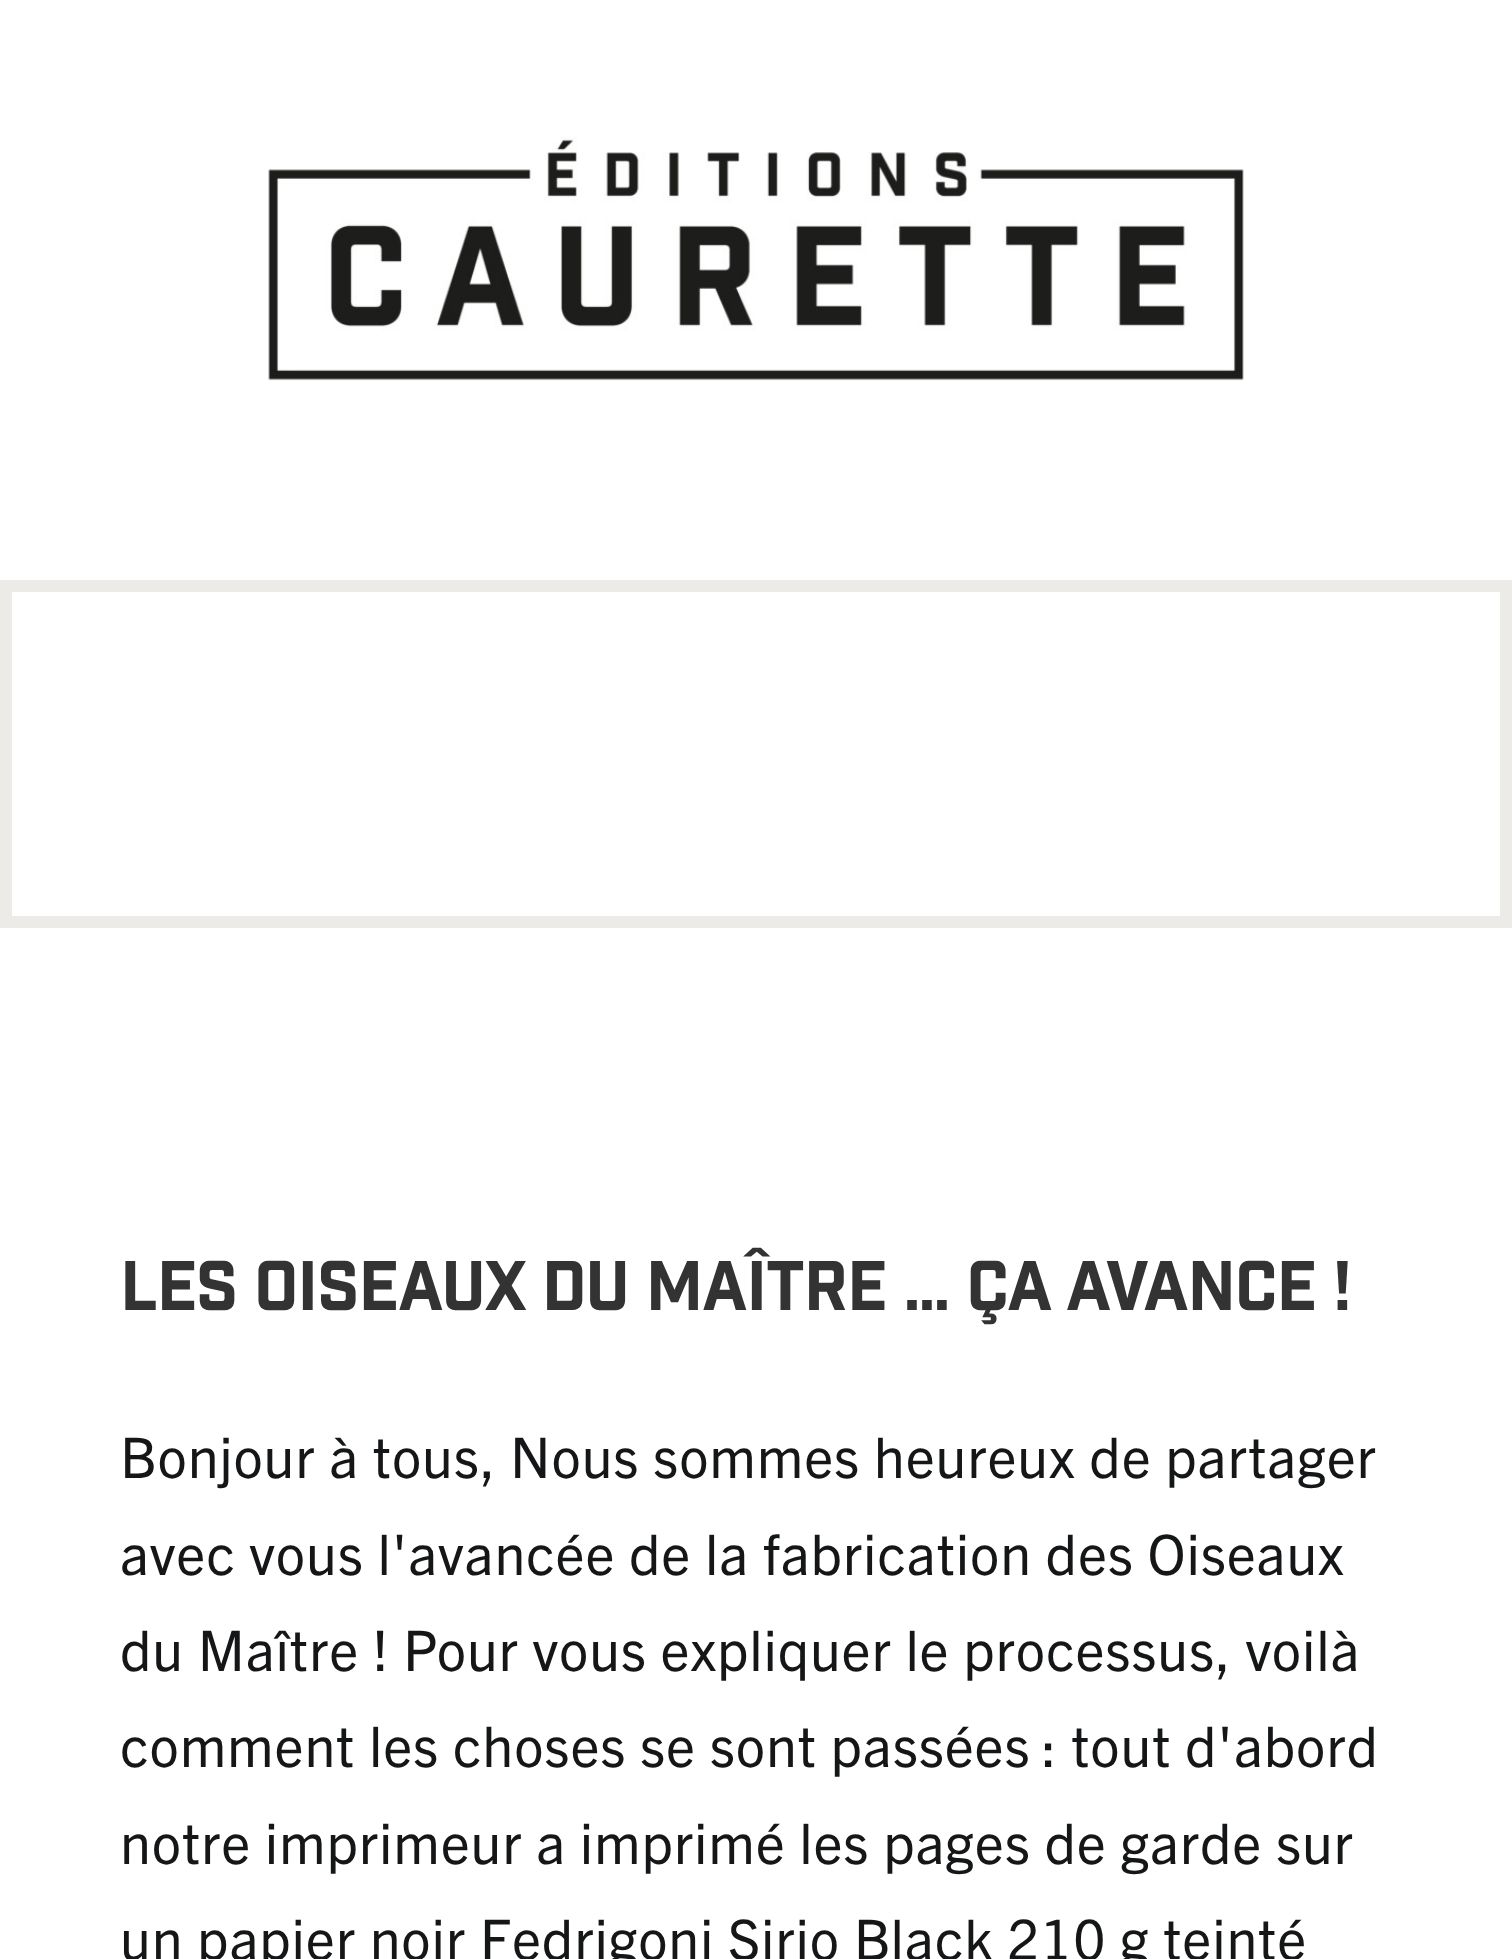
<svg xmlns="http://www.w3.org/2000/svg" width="1512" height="1959">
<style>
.a{font:68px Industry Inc;letter-spacing:-1px;fill:#333}
.b{font:56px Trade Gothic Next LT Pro;letter-spacing:0.85px;fill:#141617}
</style>
<rect width="100%" height="100%" fill="#fff"/>
<image href="1.png" x="268" y="136" width="976" height="245"/>
<path fill="none" stroke="#edebe8" stroke-width="12" d="M6 586h1500v336H6z"/>
<text class="a" x="120" y="1310">Les Oiseaux du Maître … ça avance !</text>
<text class="b" x="120" y="1478">Bonjour à tous, Nous sommes heureux de partager</text>
<text class="b" x="120" y="1575">avec vous l'avancée de la fabrication des Oiseaux</text>
<text class="b" x="120" y="1671">du Maître ! Pour vous expliquer le processus, voilà</text>
<text class="b" x="120" y="1767">comment les choses se sont passées : tout d'abord</text>
<text class="b" x="120" y="1864">notre imprimeur a imprimé les pages de garde sur</text>
<text class="b" x="120" y="1960">un papier noir Fedrigoni Sirio Black 210 g teinté</text>
</svg>
